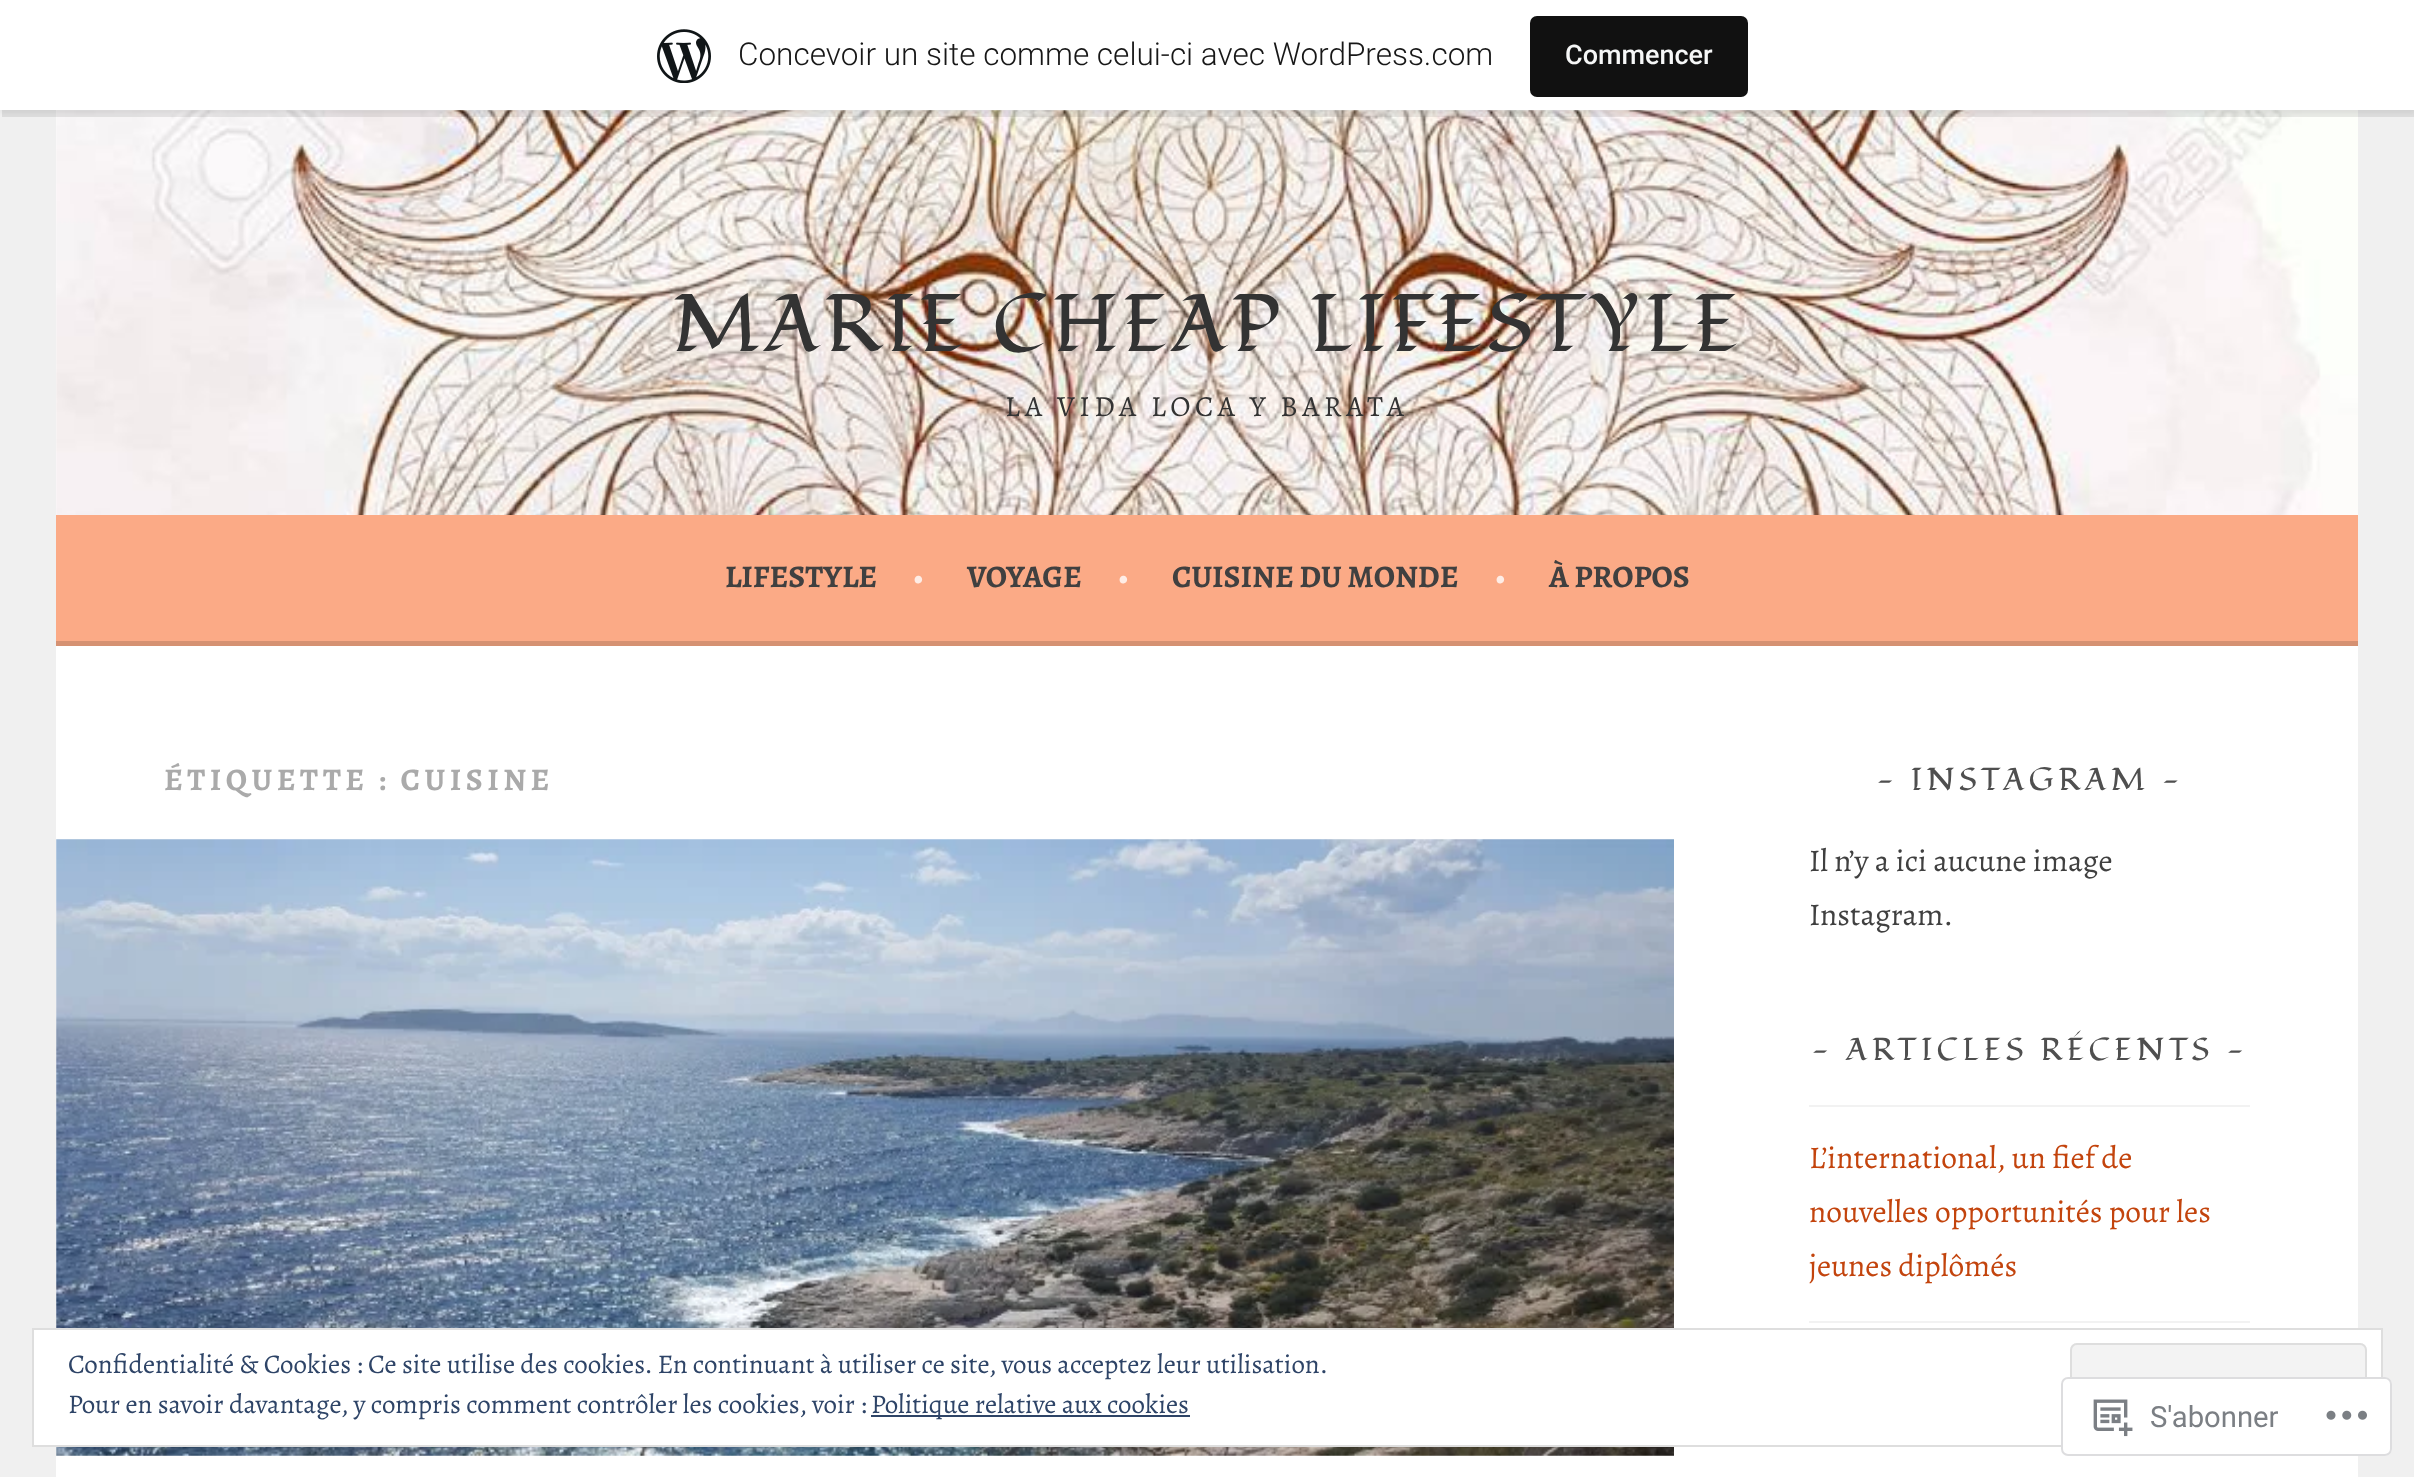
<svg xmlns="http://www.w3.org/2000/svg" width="2414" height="1477">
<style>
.a{font:300 31.5px Roboto;fill:#171717}
.b{font:500 27px Roboto;fill:#f6f7f7}
.c{font:81px Fondamento;letter-spacing:4.5px;fill:#333}
.d{font:29.25px Alegreya;letter-spacing:4.5px;fill:#333}
.e{font:bold 31.5px Alegreya;fill:#404040}
.f{font:bold 31.5px Alegreya;fill:#feede6}
.g{font:bold 31.5px Alegreya;letter-spacing:4.5px;fill:#aaa}
.h{font:31.5px Fondamento;letter-spacing:4.5px;fill:#4f4f4f}
.i{font:31.5px Alegreya;fill:#404040}
.j{font:31.5px Alegreya;fill:#c3440d}
.k{font:27px Alegreya;fill:#2e4467}
.l{font:29.25px Roboto;fill:#7b7f84}
</style>
<rect width="100%" height="100%" fill="#f0f0f0"/>
<path fill="#fff" d="M56 110h2302v405H56z"/>
<image href="2.png" x="56" y="110" width="2302" height="405"/>
<path fill="#0000000d" filter="blur(2px)" d="M0 2h2414v111H0z"/>
<path fill="#00000014" d="M2 110v7h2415v-110h-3v103z"/>
<path fill="#fff" d="M0 0h2414v110H0z"/>
<image href="1.png" x="657" y="29" width="54" height="54"/>
<rect fill="#111" x="1530" y="16" width="218" height="81" rx="7"/>
<path fill="#fbaa86" d="M56 515h2302v126H56z"/>
<path fill="#d59172" d="M56 641h2302v5H56z"/>
<path fill="#fff" d="M56 646h2302v831H56z"/>
<path fill="#f8f9f8" d="M56 839h1618v617H56z"/>
<image href="3.png" x="56" y="839" width="1618" height="617"/>
<path fill="#f2f2f2" d="M1809 1105h441v2H1809z"/>
<path fill="#f2f2f2" d="M1809 1321h441v2H1809z"/>
<path fill="#fff" stroke="#dedede" stroke-width="2" d="M33 1329h2349v117H33z"/>
<rect fill="#f3f3f3" x="2070" y="1343" width="297" height="88" rx="7"/>
<path fill="#dbdbdb" d="M2072 1420v4c0 3 2 5 5 5h283c3 0 5-2 5-5v-4c0 2-2 4-5 4h-283c-3 0-5-2-5-4z"/>
<rect fill="none" stroke="#dedede" stroke-width="2" x="2071" y="1344" width="295" height="86" rx="6"/>
<path fill="#2e4467" d="M871 1415h319v2H871z"/>
<rect fill="#fffffffa" x="2061" y="1377" width="331" height="79" rx="7"/>
<rect fill="none" stroke="#dcdcdefa" stroke-width="2" x="2062" y="1378" width="329" height="77" rx="6"/>
<image href="4.png" x="2093" y="1399" width="40" height="38"/>
<image href="5.png" x="2326" y="1410" width="41" height="10"/>
<text class="a" x="738" y="65">Concevoir un site comme celui-ci avec WordPress.com</text>
<text class="b" x="1565" y="64">Commencer</text>
<text class="c" x="672" y="351">MARIE CHEAP LIFESTYLE</text>
<text class="d" x="1005" y="416">LA VIDA LOCA Y BARATA</text>
<text class="e" x="725" y="587">LIFESTYLE</text>
<text class="f" x="913" y="587">•</text>
<text class="e" x="967" y="587">VOYAGE</text>
<text class="f" x="1118" y="587">•</text>
<text class="e" x="1172" y="587">CUISINE DU MONDE</text>
<text class="f" x="1495" y="587">•</text>
<text class="e" x="1549" y="587">À PROPOS</text>
<text class="g" x="164" y="790">ÉTIQUETTE : CUISINE</text>
<text class="h" x="1876" y="790">- INSTAGRAM -</text>
<text class="i" x="1809" y="871">Il n’y a ici aucune image</text>
<text class="i" x="1809" y="925">Instagram.</text>
<text class="h" x="1811" y="1060">- ARTICLES RÉCENTS -</text>
<text class="j" x="1809" y="1168">L’international, un fief de</text>
<text class="j" x="1809" y="1222">nouvelles opportunités pour les</text>
<text class="j" x="1809" y="1276">jeunes diplômés</text>
<text class="k" x="68" y="1373">Confidentialité &amp; Cookies : Ce site utilise des cookies. En continuant à utiliser ce site, vous acceptez leur utilisation.</text>
<text class="k" x="68" y="1413">Pour en savoir davantage, y compris comment contrôler les cookies, voir :</text>
<text class="k" x="871" y="1413">Politique relative aux cookies</text>
<text class="l" x="2150" y="1427">S'abonner</text>
</svg>
